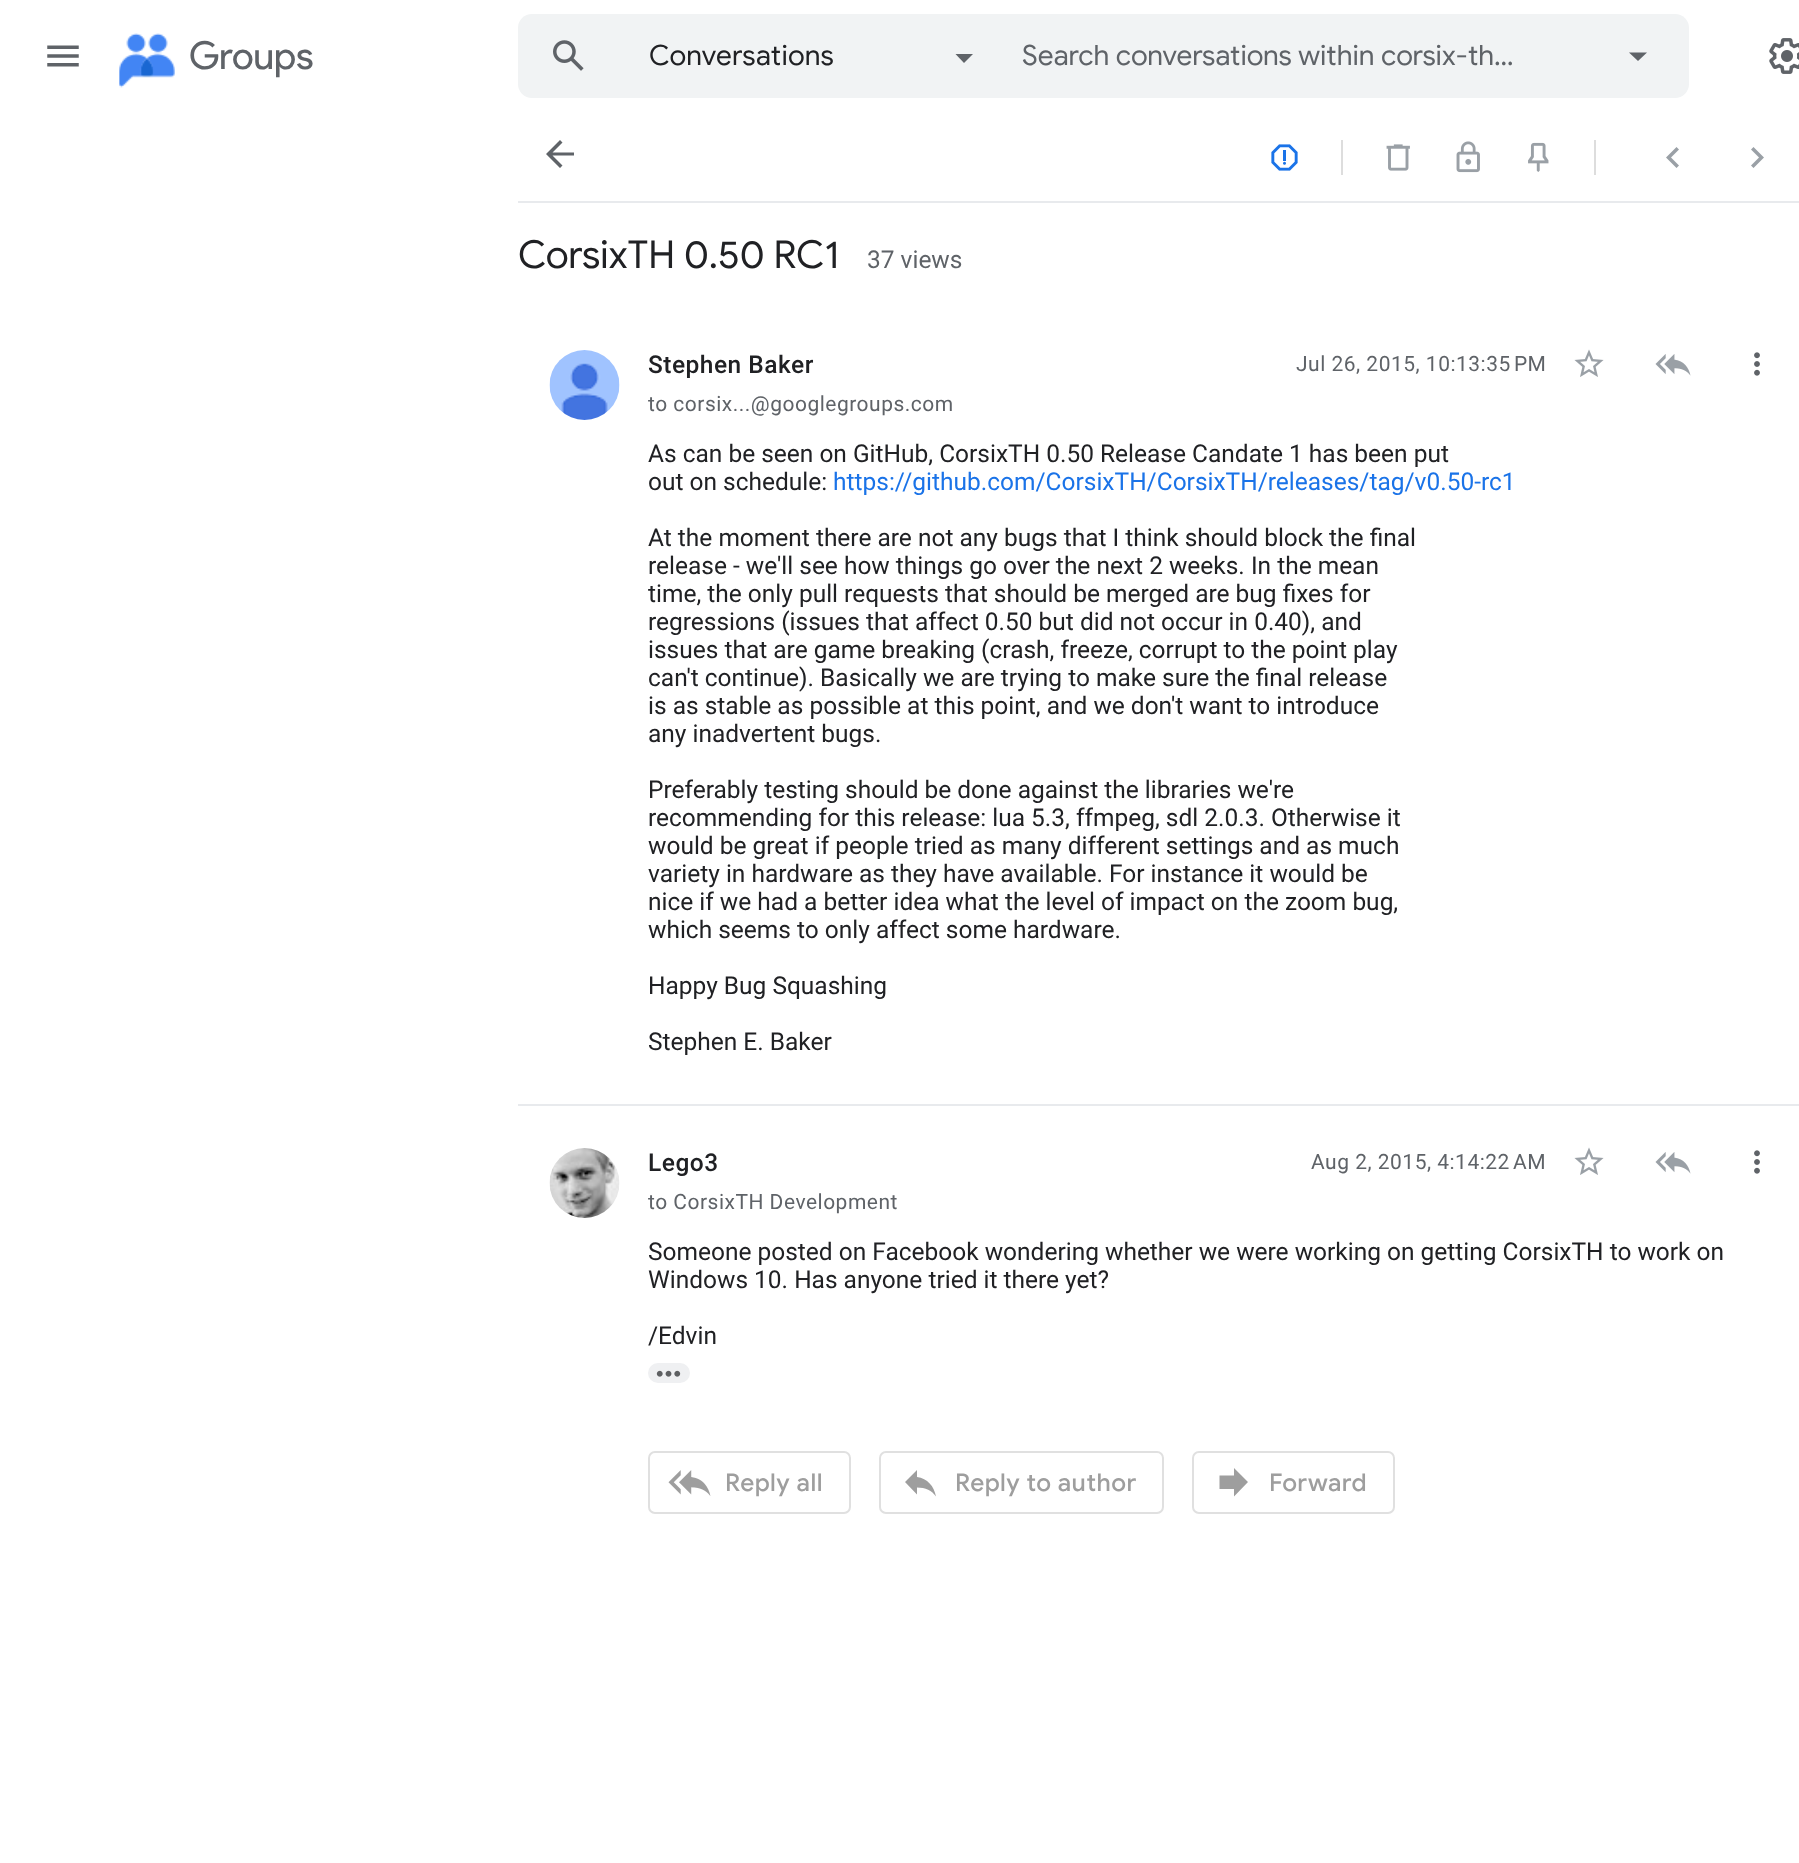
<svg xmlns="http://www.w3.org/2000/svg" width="1799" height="1863">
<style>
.a{font:38.5px Product Sans;fill:#5f6368}
.b{font:28px Google Sans;letter-spacing:0.3px;fill:#202124}
.c{font:28px Google Sans;fill:#5f6368}
.d{font:38.5px Google Sans;fill:#202124}
.e{font:24.5px Roboto;fill:#5f6368}
.f{font:500 24.5px Roboto;letter-spacing:0.5px;fill:#202124}
.g{font:21px Roboto;letter-spacing:0.5px;fill:#5f6368}
.h{font:24.5px Roboto;fill:#202124}
.i{font:24.5px Roboto;fill:#1a73e8}
.j{font:500 24.5px Google Sans;letter-spacing:0.5px;fill:#9e9e9e}
</style>
<rect width="100%" height="100%" fill="#fff"/>
<image href="1.png" x="47" y="45" width="32" height="22"/>
<image href="2.png" x="119" y="33" width="56" height="55"/>
<rect fill="#f1f3f4" x="518" y="14" width="1171" height="84" rx="14"/>
<image href="3.png" x="553" y="40" width="31" height="31"/>
<path fill="#5f6368" d="M955.5 54h17.5l-9 9z"/>
<path fill="#5f6368" d="M1629 52.5l9 8.5l9-8.5z"/>
<image href="4.png" x="1769" y="38" width="30" height="36"/>
<path fill="#e8eaed" d="M518 201h1281v2H518z"/>
<path fill="#5f6368" d="M574 152.5v3h-21.5l10 10l-2.5 2.5l-14-14l14-14l2.5 2.5l-10 10z"/>
<image href="5.png" x="1271" y="144" width="27" height="27"/>
<path fill="#ddd" d="M1341 140h2v35H1341z"/>
<image href="6.png" x="1386" y="144" width="24" height="27"/>
<image href="7.png" x="1456" y="141" width="24" height="32"/>
<image href="8.png" x="1528" y="142" width="21" height="30"/>
<path fill="#ddd" d="M1594 140h2v35H1594z"/>
<path fill="#9aa0a6" d="M1679 149.5l-8 8l8 8l-2.5 2.5l-10.5-10.5l10.5-10.5z"/>
<path fill="#9aa0a6" d="M1753.5 147l10.5 10.5l-10.5 10.5l-2.5-2.5l8-8l-8-8z"/>
<path fill="#e8eaed" d="M518 1104h1281v2H518z"/>
<image href="9.png" x="549" y="350" width="71" height="70"/>
<image href="10.png" x="1574" y="349" width="30" height="28"/>
<image href="11.png" x="1655" y="354" width="36" height="22"/>
<image href="12.png" x="1754" y="352" width="6" height="24"/>
<image href="13.png" x="549" y="1148" width="71" height="70"/>
<image href="10.png" x="1574" y="1147" width="30" height="28"/>
<image href="11.png" x="1655" y="1152" width="36" height="22"/>
<image href="12.png" x="1754" y="1150" width="6" height="24"/>
<rect fill="#eff0f2" x="648" y="1363" width="42" height="20" rx="10"/>
<image href="14.png" x="656" y="1370" width="25" height="7"/>
<rect fill="none" stroke="#e0e0e0" stroke-width="2" x="649" y="1452" width="201" height="61" rx="6"/>
<image href="15.png" x="668" y="1470" width="43" height="26"/>
<rect fill="none" stroke="#e0e0e0" stroke-width="2" x="880" y="1452" width="283" height="61" rx="6"/>
<path fill="#9e9e9e" d="M917 1477c10.5 1.5 17 9 19 19.5c-4-6-10.5-9-19-9v7l-12-12.5l12-12z"/>
<rect fill="none" stroke="#e0e0e0" stroke-width="2" x="1193" y="1452" width="201" height="61" rx="6"/>
<path fill="#9e9e9e" d="M1234 1475.5v-7.5l14 14l-14 14.5v-7.5h-14.5v-13.5z"/>
<text class="a" x="189" y="69">Groups</text>
<text class="b" x="649" y="65">Conversations</text>
<text class="c" x="1022" y="65">Search conversations within corsix-th…</text>
<text class="d" x="518" y="268">CorsixTH 0.50 RC1</text>
<text class="e" x="867" y="268">37 views</text>
<text class="f" x="648" y="373">Stephen Baker</text>
<text class="g" x="1296" y="371">Jul 26, 2015, 10:13:35 PM</text>
<text class="g" x="648" y="411">to corsix...@googlegroups.com</text>
<text class="h" x="648" y="462">As can be seen on GitHub, CorsixTH 0.50 Release Candate 1 has been put</text>
<text class="h" x="648" y="490">out on schedule:</text>
<text class="i" x="833" y="490">https://github.com/CorsixTH/CorsixTH/releases/tag/v0.50-rc1</text>
<text class="h" x="648" y="546">At the moment there are not any bugs that I think should block the final</text>
<text class="h" x="648" y="574">release - we'll see how things go over the next 2 weeks. In the mean</text>
<text class="h" x="648" y="602">time, the only pull requests that should be merged are bug fixes for</text>
<text class="h" x="648" y="630">regressions (issues that affect 0.50 but did not occur in 0.40), and</text>
<text class="h" x="648" y="658">issues that are game breaking (crash, freeze, corrupt to the point play</text>
<text class="h" x="648" y="686">can't continue). Basically we are trying to make sure the final release</text>
<text class="h" x="648" y="714">is as stable as possible at this point, and we don't want to introduce</text>
<text class="h" x="648" y="742">any inadvertent bugs.</text>
<text class="h" x="648" y="798">Preferably testing should be done against the libraries we're</text>
<text class="h" x="648" y="826">recommending for this release: lua 5.3, ffmpeg, sdl 2.0.3. Otherwise it</text>
<text class="h" x="648" y="854">would be great if people tried as many different settings and as much</text>
<text class="h" x="648" y="882">variety in hardware as they have available. For instance it would be</text>
<text class="h" x="648" y="910">nice if we had a better idea what the level of impact on the zoom bug,</text>
<text class="h" x="648" y="938">which seems to only affect some hardware.</text>
<text class="h" x="648" y="994">Happy Bug Squashing</text>
<text class="h" x="648" y="1050">Stephen E. Baker</text>
<text class="f" x="648" y="1171">Lego3</text>
<text class="g" x="1311" y="1169">Aug 2, 2015, 4:14:22 AM</text>
<text class="g" x="648" y="1209">to CorsixTH Development</text>
<text class="h" x="648" y="1260">Someone posted on Facebook wondering whether we were working on getting CorsixTH to work on</text>
<text class="h" x="648" y="1288">Windows 10. Has anyone tried it there yet?</text>
<text class="h" x="648" y="1344">/Edvin</text>
<text class="j" x="725" y="1491">Reply all</text>
<text class="j" x="955" y="1491">Reply to author</text>
<text class="j" x="1269" y="1491">Forward</text>
</svg>
